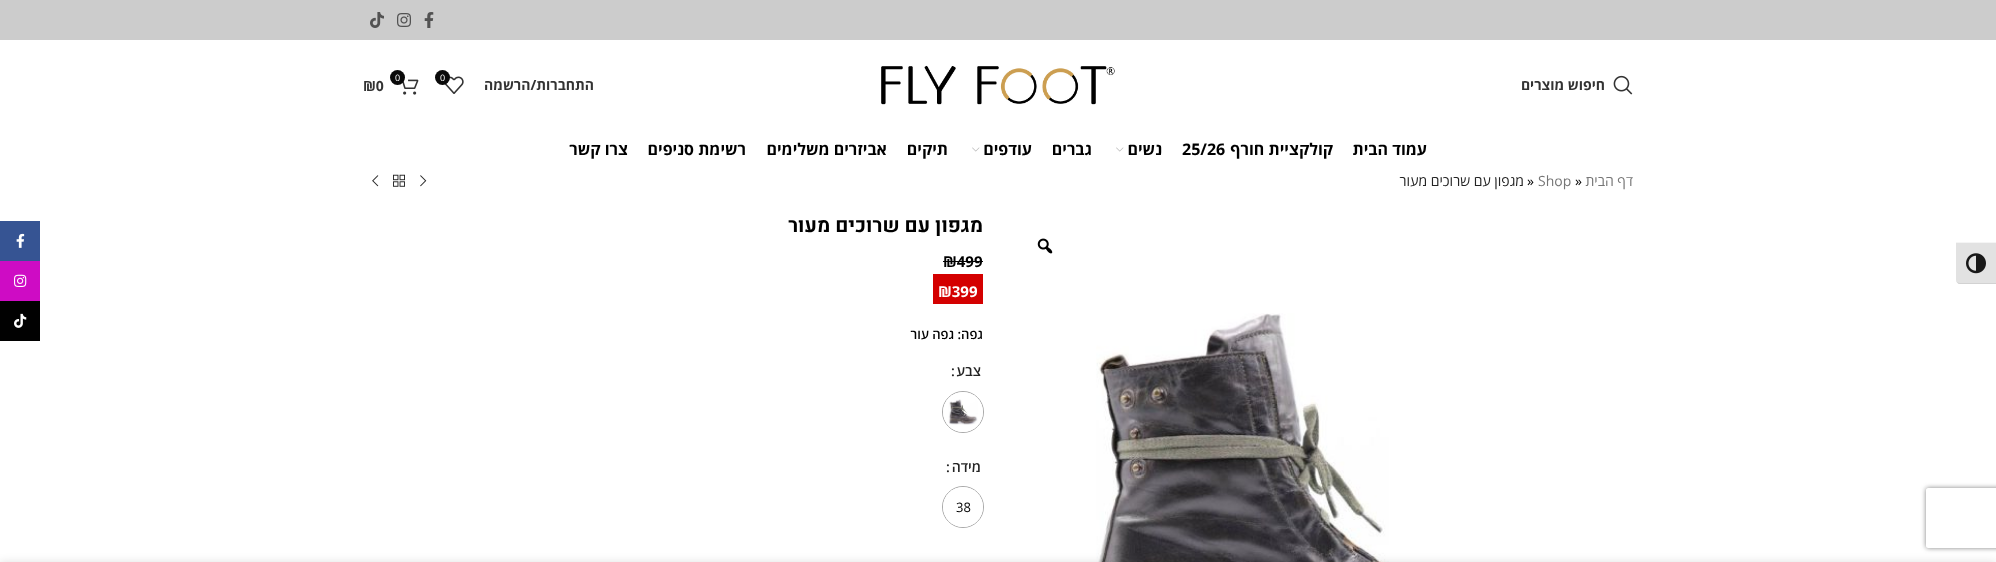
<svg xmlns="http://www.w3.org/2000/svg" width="1996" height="562">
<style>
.a{font:bold 14px Open Sans;direction:rtl;fill:#333}
.b{font:9px Open Sans;fill:#fff}
.c{font:bold 14px Open Sans;fill:#333}
.d{font:bold 16px Open Sans;direction:rtl;fill:#000}
.e{font:bold 16px Open Sans;fill:#000}
.f{font:14px Open Sans;direction:rtl;fill:#767676}
.g{font:14px Open Sans;fill:#000}
.h{font:14px Open Sans;fill:#767676}
.i{font:14px Open Sans;direction:rtl;fill:#242424}
.j{font:bold 20px Heebo;direction:rtl;fill:#000}
.k{font:bold 15px Open Sans;fill:#000}
.l{font:bold 15px Open Sans;fill:#fff}
.m{font:600 13px Open Sans;direction:rtl;fill:#000}
.n{font:600 14px Open Sans;direction:rtl;fill:#242424}
.o{font:600 14px Open Sans;fill:#242424}
.p{font:13px Open Sans;fill:#000}
</style>
<defs>
<clipPath id="clip1"><path d="M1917 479h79v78h-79zm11 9h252c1 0 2 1 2 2v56c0 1-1 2-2 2h-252c-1 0-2-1-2-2v-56c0-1 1-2 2-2z" clip-rule="evenodd"/></clipPath>
</defs>
<rect width="100%" height="100%" fill="#fff"/>
<path fill="#e2e2e2" d="M1956 242h40v42h-36c-2 0-4-2-4-4z"/>
<path fill="#f5f5f5" d="M1956 242h40v1H1956z"/>
<path fill="#d2d2d2" d="M1996 284v-1h-36c-2 0-4-1-4-3c0 2 2 4 4 4z"/>
<image href="1.png" x="1966" y="253" width="20" height="21"/>
<path fill="#ccc" d="M0 0h1996v40H0z"/>
<image href="2.png" x="424" y="12" width="10" height="16"/>
<image href="3.png" x="397" y="13" width="14" height="14"/>
<image href="4.png" x="370" y="12" width="14" height="16"/>
<image href="5.png" x="1613" y="75" width="20" height="20"/>
<image href="6.png" x="881" y="65" width="234" height="40"/>
<image href="7.png" x="444" y="76" width="20" height="18"/>
<circle fill="#0a0a0a" cx="442.5" cy="77.5" r="7.5"/>
<image href="8.png" x="402" y="79" width="17" height="16"/>
<circle fill="#0a0a0a" cx="397.5" cy="77.5" r="7.5"/>
<image href="9.png" x="1116" y="147" width="8" height="5"/>
<image href="9.png" x="972" y="147" width="8" height="5"/>
<image href="10.png" x="420" y="175" width="7" height="12"/>
<image href="11.png" x="393" y="174" width="12" height="13"/>
<image href="12.png" x="372" y="175" width="7" height="12"/>
<image href="13.png" x="1037" y="238" width="16" height="16"/>
<image href="14.png" x="1096" y="313" width="293" height="249"/>
<path fill="#000" d="M943 261h40v1H943z"/>
<path fill="#d40000" d="M933 274h50v30H933z"/>
<circle fill="none" stroke="#a8a8a8" cx="963" cy="412" r="20.5"/>
<circle fill="#fff" cx="963" cy="412" r="20"/>
<image href="15.png" x="948" y="399" width="30" height="26"/>
<circle fill="none" stroke="#a8a8a8" cx="963" cy="507" r="20.5"/>
<circle fill="#fff" cx="963" cy="507" r="20"/>
<path fill="#365493" d="M0 221h40v40H0z"/>
<image href="16.png" x="16" y="233" width="9" height="15"/>
<path fill="#ce0cc4" d="M0 261h40v40H0z"/>
<image href="17.png" x="14" y="274" width="13" height="13"/>
<path fill="#010101" d="M0 301h40v40H0z"/>
<image href="18.png" x="14" y="313" width="13" height="15"/>
<g clip-path="url(#clip1)">
<rect fill="#808080" filter="blur(2.5px)" x="1926" y="488" width="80" height="60" rx="2"/>
</g>
<path fill="#0000001f" filter="blur(4.5px)" d="M0 562h1996v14H0z"/>
<text class="a" x="1605" y="90">חיפוש מוצרים</text>
<text class="b" x="440" y="81">0</text>
<text class="b" x="395" y="81">0</text>
<text class="c" x="363" y="91">₪0</text>
<text class="a" x="594" y="90">התחברות/הרשמה</text>
<text class="d" x="1427" y="155">עמוד הבית</text>
<text class="d" x="1333" y="155">קולקציית חורף</text>
<text class="e" x="1182" y="155">25/26</text>
<text class="d" x="1162" y="155">נשים</text>
<text class="d" x="1092" y="155">גברים</text>
<text class="d" x="1032" y="155">עודפים</text>
<text class="d" x="948" y="155">תיקים</text>
<text class="d" x="887" y="155">אביזרים משלימים</text>
<text class="d" x="746" y="155">רשימת סניפים</text>
<text class="d" x="628" y="155">צרו קשר</text>
<text class="f" x="1633" y="186">דף הבית</text>
<text class="g" x="1575" y="186">»</text>
<text class="h" x="1538" y="186">Shop</text>
<text class="g" x="1527" y="186">»</text>
<text class="i" x="1524" y="186">מגפון עם שרוכים מעור</text>
<text class="j" x="983" y="232">מגפון עם שרוכים מעור</text>
<text class="k" x="943" y="267">₪499</text>
<text class="l" x="938" y="297">₪399</text>
<text class="m" x="983" y="339">גפה: גפה עור</text>
<text class="n" x="981" y="376">צבע</text>
<text class="o" x="951" y="376">:</text>
<text class="n" x="981" y="472">מידה</text>
<text class="o" x="946" y="472">:</text>
<text class="p" x="956" y="512">38</text>
</svg>
